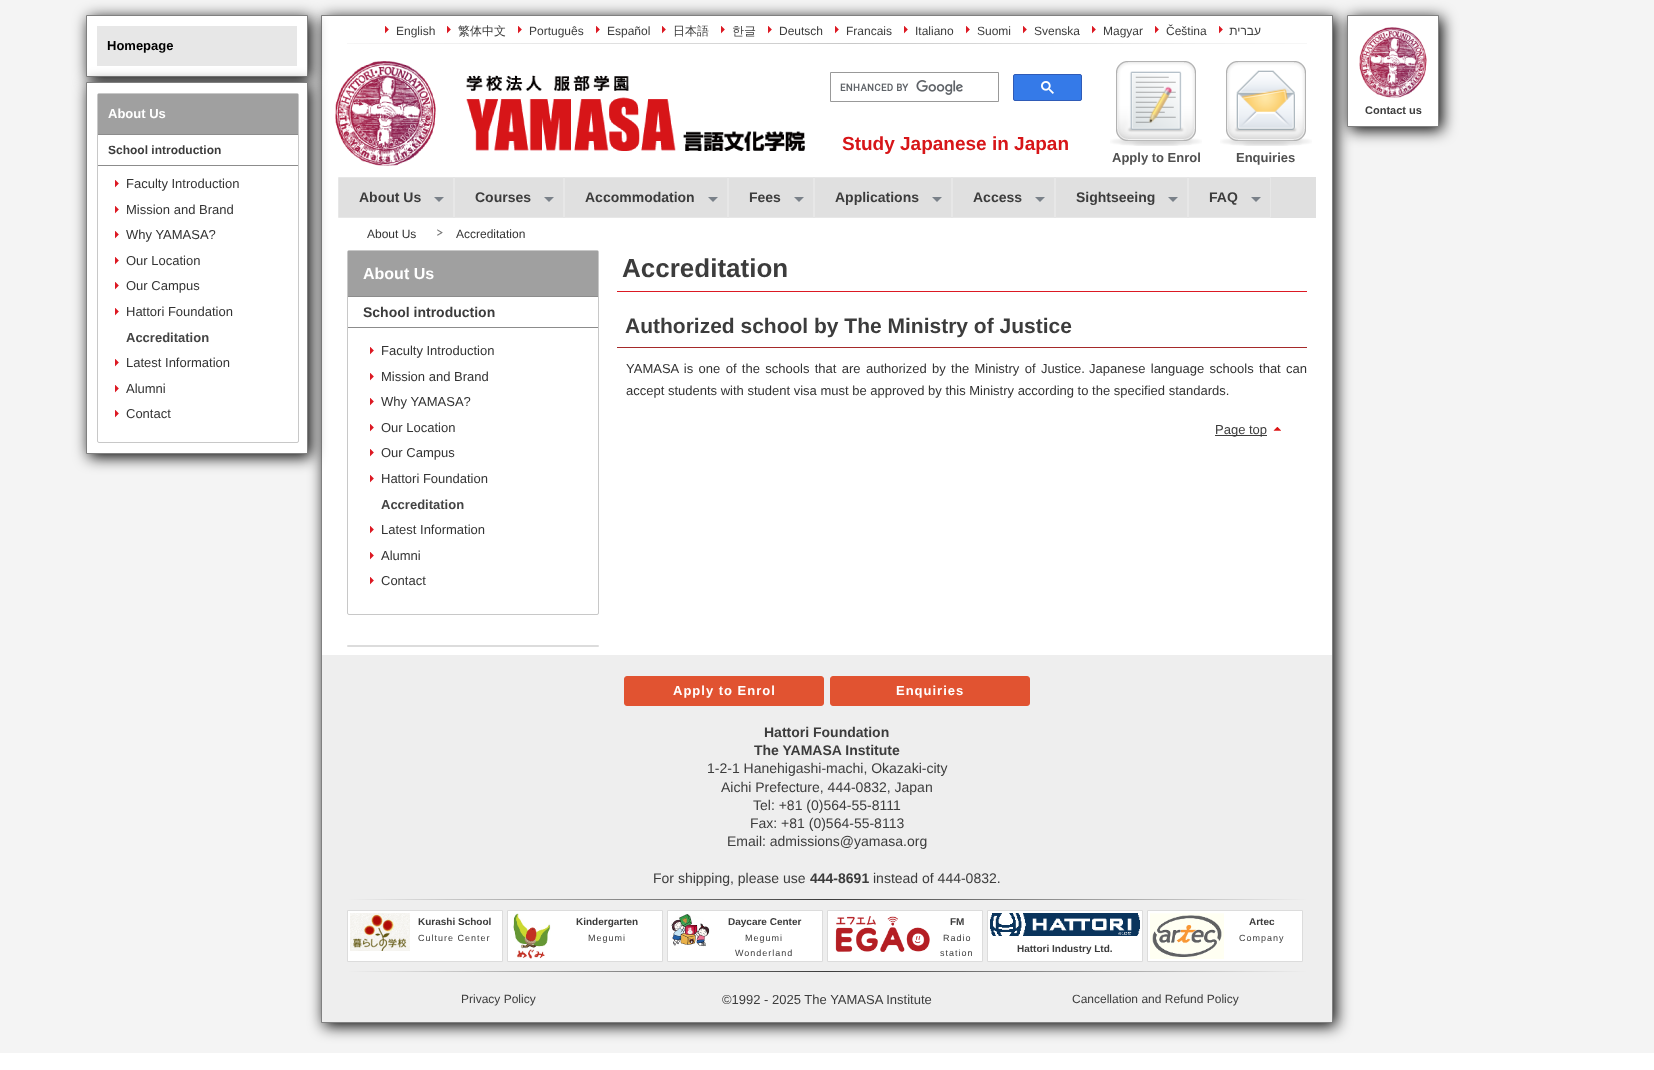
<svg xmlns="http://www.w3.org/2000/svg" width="1654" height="1070">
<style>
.a{font:12px Liberation Sans;fill:#3c3c3c}
.b{font:500 12px WenQuanYi Zen Hei;fill:#3c3c3c}
.c{font:12px Liberation Sans;direction:rtl;fill:#3c3c3c}
.d{font:bold 13px Liberation Sans;fill:#000}
.e{font:bold 13px Liberation Sans;fill:#fff}
.f{font:bold 12px Liberation Sans;fill:#3c3c3c}
.g{font:13px Liberation Sans;fill:#333}
.h{font:bold 13px Liberation Sans;fill:#444}
.i{font:12px Liberation Sans;fill:#333}
.j{font:bold 16px Liberation Sans;fill:#fff}
.k{font:bold 14px Liberation Sans;fill:#3c3c3c}
.l{font:bold 26px Liberation Sans;fill:#3c3c3c}
.m{font:bold 21px Liberation Sans;fill:#3c3c3c}
.n{font:13px Liberation Sans;fill:#3c3c3c}
.o{font:bold 11px Liberation Sans;fill:#3c3c3c}
.p{font:bold 19px Liberation Sans;fill:#d71518}
.q{font:bold 13px Liberation Sans;fill:#505050}
.r{font:bold 13px Liberation Sans;letter-spacing:1px;fill:#fff}
.s{font:14px Liberation Sans;fill:#3c3c3c}
.t{font:bold 10px Liberation Sans;fill:#3c3c3c}
.u{font:9px Liberation Sans;letter-spacing:1px;fill:#3c3c3c}
</style>
<defs>
<linearGradient id="g1" gradientUnits="userSpaceOnUse" x1="347" y1="900" x2="1307" y2="900"><stop offset="0" stop-color="#eee"/><stop offset="0.5" stop-color="#3c3c3c"/><stop offset="1" stop-color="#eee"/></linearGradient>
<linearGradient id="g2" gradientUnits="userSpaceOnUse" x1="347" y1="972" x2="1307" y2="972"><stop offset="0" stop-color="#eee"/><stop offset="0.5" stop-color="#3c3c3c"/><stop offset="1" stop-color="#eee"/></linearGradient>
</defs>
<rect width="100%" height="100%" fill="#fff"/>
<path fill="#f4f4f4" d="M0 0h1654v1053H0z"/>
<path fill="#000" filter="blur(7.5px)" d="M324 18h1012v1008H324z"/>
<path fill="#fff" d="M322 16h1010v639H322z"/>
<path fill="none" stroke="#808080" d="M321.5 15.5h1011v1007H321.5z"/>
<image href="1.png" x="347" y="43" width="960" height="1"/>
<image href="2.png" x="385" y="26" width="4" height="8"/>
<image href="2.png" x="447" y="26" width="4" height="8"/>
<image href="2.png" x="518" y="26" width="4" height="8"/>
<image href="2.png" x="596" y="26" width="4" height="8"/>
<image href="2.png" x="662" y="26" width="4" height="8"/>
<image href="2.png" x="721" y="26" width="4" height="8"/>
<image href="2.png" x="768" y="26" width="4" height="8"/>
<image href="2.png" x="835" y="26" width="4" height="8"/>
<image href="2.png" x="904" y="26" width="4" height="8"/>
<image href="2.png" x="966" y="26" width="4" height="8"/>
<image href="2.png" x="1023" y="26" width="4" height="8"/>
<image href="2.png" x="1092" y="26" width="4" height="8"/>
<image href="2.png" x="1155" y="26" width="4" height="8"/>
<image href="2.png" x="1219" y="26" width="4" height="8"/>
<path fill="#000" filter="blur(7.5px)" d="M89 18h222v62H89z"/>
<path fill="#fff" stroke="#808080" d="M86.5 15.5h221v61H86.5z"/>
<path fill="#e7e7e7" d="M97 26h200v40H97z"/>
<path fill="#000" filter="blur(7.5px)" d="M89 85h222v372H89z"/>
<path fill="#fff" stroke="#808080" d="M86.5 82.5h221v371H86.5z"/>
<rect fill="none" stroke="#c8c8c8" x="97.5" y="93.5" width="201" height="349" rx="1.5"/>
<path fill="#a0a0a0" d="M98 94h200v40H98z"/>
<path fill="#8c8c8c" d="M98 134h200v1H98z"/>
<path fill="#8c8c8c" d="M98 165h200v1H98z"/>
<image href="3.png" x="115" y="180" width="4" height="8"/>
<image href="3.png" x="115" y="206" width="4" height="8"/>
<image href="3.png" x="115" y="231" width="4" height="8"/>
<image href="3.png" x="115" y="257" width="4" height="8"/>
<image href="3.png" x="115" y="282" width="4" height="8"/>
<image href="3.png" x="115" y="308" width="4" height="8"/>
<image href="3.png" x="115" y="359" width="4" height="8"/>
<image href="3.png" x="115" y="385" width="4" height="8"/>
<image href="3.png" x="115" y="410" width="4" height="8"/>
<image href="4.png" x="437" y="229" width="6" height="7"/>
<rect fill="none" stroke="#c8c8c8" x="347.5" y="250.5" width="251" height="364" rx="1.5"/>
<path fill="#a0a0a0" d="M348 251h250v45H348z"/>
<path fill="#8c8c8c" d="M348 296h250v1H348z"/>
<path fill="#8c8c8c" d="M348 327h250v1H348z"/>
<image href="3.png" x="370" y="347" width="4" height="8"/>
<image href="3.png" x="370" y="373" width="4" height="8"/>
<image href="3.png" x="370" y="398" width="4" height="8"/>
<image href="3.png" x="370" y="424" width="4" height="8"/>
<image href="3.png" x="370" y="449" width="4" height="8"/>
<image href="3.png" x="370" y="475" width="4" height="8"/>
<image href="3.png" x="370" y="526" width="4" height="8"/>
<image href="3.png" x="370" y="552" width="4" height="8"/>
<image href="3.png" x="370" y="577" width="4" height="8"/>
<rect fill="#dcdcdc" x="347" y="645" width="252" height="2" rx="1"/>
<path fill="#dc1923" d="M617 291h690v1H617z"/>
<path fill="#a52a2a" d="M617 347h690v1H617z"/>
<image href="5.png" x="1273" y="427" width="8" height="4"/>
<path fill="#3c3c3c" d="M1215 435h52v1H1215z"/>
<path fill="#000" filter="blur(7.5px)" d="M1350 18h92v112H1350z"/>
<path fill="#fff" stroke="#808080" d="M1347.5 15.5h91v111H1347.5z"/>
<image href="6.png" x="1359" y="27" width="68" height="71"/>
<image href="7.png" x="335" y="61" width="470" height="105"/>
<path fill="none" stroke="#999" d="M830.5 72.5h168v29H830.5z"/>
<image href="8.png" x="840" y="80" width="123" height="15"/>
<rect fill="#357ae8" stroke="#2f5bb7" x="1013.5" y="74.5" width="68" height="26" rx="1.5"/>
<image href="9.png" x="1041" y="81" width="13" height="13"/>
<image href="10.png" x="1110" y="61" width="92" height="85"/>
<image href="11.png" x="1220" y="61" width="92" height="85"/>
<path fill="#e0e0e0" d="M339 177h977v41H339z"/>
<path fill="none" stroke="#e7e7e7" d="M338.5 177.5h115v40H338.5z"/>
<path fill="#7a8189" d="M434 197h10l-5 5z"/>
<path fill="none" stroke="#e7e7e7" d="M454.5 177.5h109v40H454.5z"/>
<path fill="#7a8189" d="M544 197h10l-5 5z"/>
<path fill="none" stroke="#e7e7e7" d="M564.5 177.5h163v40H564.5z"/>
<path fill="#7a8189" d="M708 197h10l-5 5z"/>
<path fill="none" stroke="#e7e7e7" d="M728.5 177.5h85v40H728.5z"/>
<path fill="#7a8189" d="M794 197h10l-5 5z"/>
<path fill="none" stroke="#e7e7e7" d="M814.5 177.5h137v40H814.5z"/>
<path fill="#7a8189" d="M932 197h10l-5 5z"/>
<path fill="none" stroke="#e7e7e7" d="M952.5 177.5h102v40H952.5z"/>
<path fill="#7a8189" d="M1035 197h10l-5 5z"/>
<path fill="none" stroke="#e7e7e7" d="M1055.5 177.5h132v40H1055.5z"/>
<path fill="#7a8189" d="M1168 197h10l-5 5z"/>
<path fill="none" stroke="#e7e7e7" d="M1188.5 177.5h82v40H1188.5z"/>
<path fill="#7a8189" d="M1251 197h10l-5 5z"/>
<path fill="#eee" d="M322 655h1010v367H322z"/>
<rect fill="#e15331" stroke="#e15331" x="624.5" y="676.5" width="199" height="29" rx="2.5"/>
<rect fill="#e15331" stroke="#e15331" x="830.5" y="676.5" width="199" height="29" rx="2.5"/>
<path fill="url(#g1)" d="M347 899h960v1H347z"/>
<path fill="#fff" stroke="#dcdcdc" d="M347.5 910.5h155v51H347.5z"/>
<image href="12.png" x="350" y="913" width="60" height="38"/>
<path fill="#fff" stroke="#dcdcdc" d="M507.5 910.5h155v51H507.5z"/>
<image href="13.png" x="513" y="913" width="38" height="46"/>
<path fill="#fff" stroke="#dcdcdc" d="M667.5 910.5h155v51H667.5z"/>
<image href="14.png" x="671" y="914" width="39" height="33"/>
<path fill="#fff" stroke="#dcdcdc" d="M827.5 910.5h155v51H827.5z"/>
<image href="15.png" x="835" y="916" width="95" height="36"/>
<path fill="#fff" stroke="#dcdcdc" d="M1147.5 910.5h155v51H1147.5z"/>
<image href="16.png" x="1150" y="913" width="74" height="46"/>
<path fill="#fff" stroke="#dcdcdc" d="M987.5 910.5h155v51H987.5z"/>
<image href="17.png" x="990" y="913" width="150" height="23"/>
<path fill="url(#g2)" d="M347 971h960v1H347z"/>
<text class="a" x="396" y="35">English</text>
<text class="b" x="458" y="35">繁体中文</text>
<text class="a" x="529" y="35">Português</text>
<text class="a" x="607" y="35">Español</text>
<text class="b" x="673" y="35">日本語</text>
<text class="b" x="732" y="35">한글</text>
<text class="a" x="779" y="35">Deutsch</text>
<text class="a" x="846" y="35">Francais</text>
<text class="a" x="915" y="35">Italiano</text>
<text class="a" x="977" y="35">Suomi</text>
<text class="a" x="1034" y="35">Svenska</text>
<text class="a" x="1103" y="35">Magyar</text>
<text class="a" x="1166" y="35">Čeština</text>
<text class="c" x="1261" y="35">עברית</text>
<text class="d" x="107" y="50">Homepage</text>
<text class="e" x="108" y="118">About Us</text>
<text class="f" x="108" y="154">School introduction</text>
<text class="g" x="126" y="188">Faculty Introduction</text>
<text class="g" x="126" y="214">Mission and Brand</text>
<text class="g" x="126" y="239">Why YAMASA?</text>
<text class="g" x="126" y="265">Our Location</text>
<text class="g" x="126" y="290">Our Campus</text>
<text class="g" x="126" y="316">Hattori Foundation</text>
<text class="h" x="126" y="342">Accreditation</text>
<text class="g" x="126" y="367">Latest Information</text>
<text class="g" x="126" y="393">Alumni</text>
<text class="g" x="126" y="418">Contact</text>
<text class="i" x="367" y="238">About Us</text>
<text class="i" x="456" y="238">Accreditation</text>
<text class="j" x="363" y="279">About Us</text>
<text class="k" x="363" y="317">School introduction</text>
<text class="g" x="381" y="355">Faculty Introduction</text>
<text class="g" x="381" y="381">Mission and Brand</text>
<text class="g" x="381" y="406">Why YAMASA?</text>
<text class="g" x="381" y="432">Our Location</text>
<text class="g" x="381" y="457">Our Campus</text>
<text class="g" x="381" y="483">Hattori Foundation</text>
<text class="h" x="381" y="509">Accreditation</text>
<text class="g" x="381" y="534">Latest Information</text>
<text class="g" x="381" y="560">Alumni</text>
<text class="g" x="381" y="585">Contact</text>
<text class="l" x="622" y="277">Accreditation</text>
<text class="m" x="625" y="333">Authorized school by The Ministry of Justice</text>
<text class="g" x="626" y="373" word-spacing="1.75">YAMASA is one of the schools that are authorized by the Ministry of Justice.</text>
<text class="g" x="1089" y="373" word-spacing="1.75">Japanese language schools that can</text>
<text class="g" x="626" y="395">accept students with student visa must be approved by this Ministry according to the specified standards.</text>
<text class="n" x="1215" y="434">Page top</text>
<text class="o" x="1365" y="114">Contact us</text>
<text class="p" x="842" y="150">Study Japanese in Japan</text>
<text class="q" x="1112" y="162">Apply to Enrol</text>
<text class="q" x="1236" y="162">Enquiries</text>
<text class="k" x="359" y="202">About Us</text>
<text class="k" x="475" y="202">Courses</text>
<text class="k" x="585" y="202">Accommodation</text>
<text class="k" x="749" y="202">Fees</text>
<text class="k" x="835" y="202">Applications</text>
<text class="k" x="973" y="202">Access</text>
<text class="k" x="1076" y="202">Sightseeing</text>
<text class="k" x="1209" y="202">FAQ</text>
<text class="r" x="673" y="695">Apply to Enrol</text>
<text class="r" x="896" y="695">Enquiries</text>
<text class="k" x="764" y="737">Hattori Foundation</text>
<text class="k" x="754" y="755">The YAMASA Institute</text>
<text class="s" x="707" y="773">1-2-1 Hanehigashi-machi, Okazaki-city</text>
<text class="s" x="721" y="792">Aichi Prefecture, 444-0832, Japan</text>
<text class="s" x="753" y="810">Tel: +81 (0)564-55-8111</text>
<text class="s" x="750" y="828">Fax: +81 (0)564-55-8113</text>
<text class="s" x="727" y="846">Email: admissions@yamasa.org</text>
<text class="s" x="653" y="883">For shipping, please use</text>
<text class="k" x="810" y="883">444-8691</text>
<text class="s" x="873" y="883">instead of 444-0832.</text>
<text class="t" x="418" y="925">Kurashi School</text>
<text class="u" x="418" y="941">Culture Center</text>
<text class="t" x="576" y="925">Kindergarten</text>
<text class="u" x="588" y="941">Megumi</text>
<text class="t" x="728" y="925">Daycare Center</text>
<text class="u" x="745" y="941">Megumi</text>
<text class="u" x="735" y="956">Wonderland</text>
<text class="t" x="950" y="925">FM</text>
<text class="u" x="943" y="941">Radio</text>
<text class="u" x="940" y="956">station</text>
<text class="t" x="1249" y="925">Artec</text>
<text class="u" x="1239" y="941">Company</text>
<text class="t" x="1017" y="952">Hattori Industry Ltd.</text>
<text class="a" x="461" y="1003">Privacy Policy</text>
<text class="n" x="722" y="1004">©1992 - 2025 The YAMASA Institute</text>
<text class="a" x="1072" y="1003">Cancellation and Refund Policy</text>
</svg>
